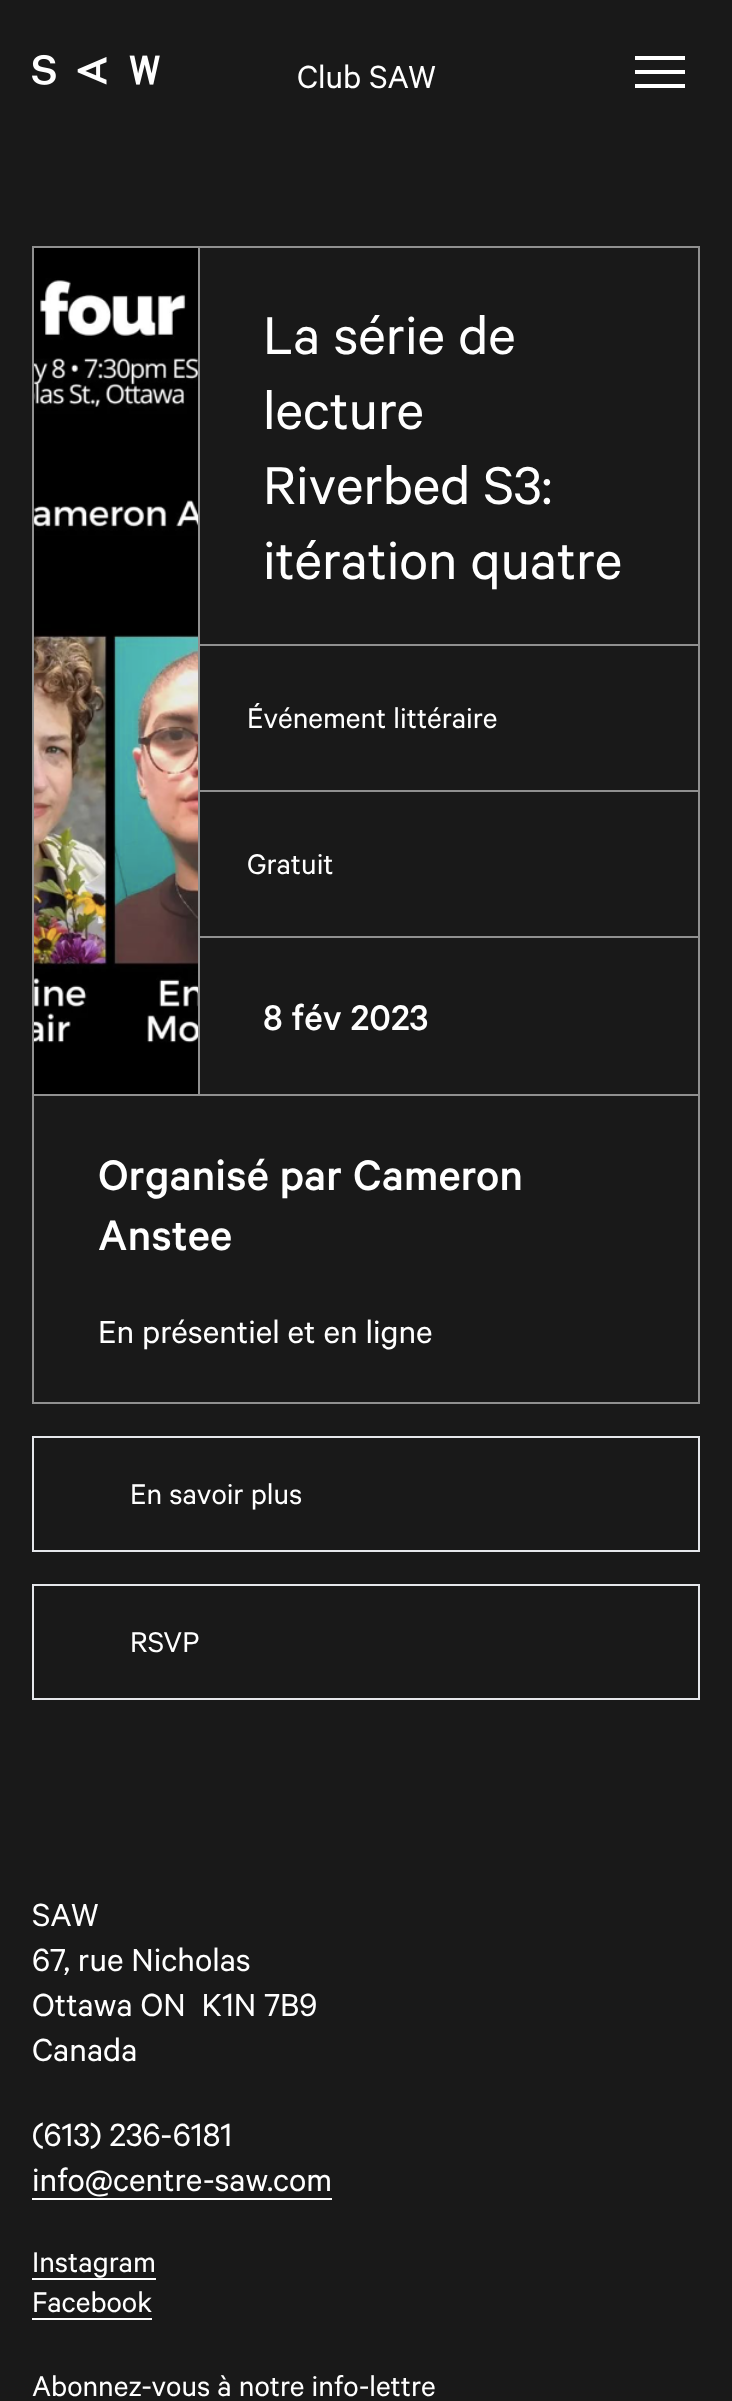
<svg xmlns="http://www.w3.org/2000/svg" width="732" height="2401">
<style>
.a{font:36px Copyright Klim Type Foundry;fill:#fff}
.b{font:60px Copyright Klim Type Foundry;fill:#fff}
.c{font:32px Copyright Klim Type Foundry;fill:#fff}
.d{font:500 40px Copyright Klim Type Foundry;fill:#fff}
.e{font:500 48px Copyright Klim Type Foundry;fill:#fff}
</style>
<rect width="100%" height="100%" fill="#191919"/>
<image href="1.png" x="32" y="54" width="128" height="31"/>
<path fill="#fff" d="M685 60h-50v-4h50zm0 14h-50v-4h50zm0 14h-50v-4h50z"/>
<path fill="none" stroke="#909090" stroke-width="2" d="M199 247h500v848H199z"/>
<path fill="none" stroke="#909090" stroke-width="2" d="M33 1095h666v308H33z"/>
<path fill="none" stroke="#909090" stroke-width="2" d="M33 247h166v848H33z"/>
<image href="2.png" x="34" y="248" width="164" height="846"/>
<path fill="#909090" d="M200 644h498v2H200z"/>
<path fill="#909090" d="M200 790h498v2H200z"/>
<path fill="#909090" d="M200 936h498v2H200z"/>
<path fill="none" stroke="#e5e7eb" stroke-width="2" d="M33 1437h666v114H33z"/>
<path fill="none" stroke="#e5e7eb" stroke-width="2" d="M33 1585h666v114H33z"/>
<path fill="#fff" d="M32 2198h300v2H32z"/>
<path fill="#fff" d="M32 2278h124v2H32z"/>
<path fill="#fff" d="M32 2318h120v2H32z"/>
<text class="a" x="297" y="88">Club SAW</text>
<text class="b" x="263" y="354">La série de</text>
<text class="b" x="263" y="429">lecture</text>
<text class="b" x="263" y="504">Riverbed S3:</text>
<text class="b" x="263" y="579">itération quatre</text>
<text class="c" x="247" y="728">Événement littéraire</text>
<text class="c" x="247" y="874">Gratuit</text>
<text class="d" x="263" y="1030">8 fév 2023</text>
<text class="e" x="98" y="1190">Organisé par Cameron</text>
<text class="e" x="98" y="1250">Anstee</text>
<text class="a" x="98" y="1343">En présentiel et en ligne</text>
<text class="c" x="130" y="1504">En savoir plus</text>
<text class="c" x="130" y="1652">RSVP</text>
<text class="a" x="32" y="1926">SAW</text>
<text class="a" x="32" y="1971">67, rue Nicholas</text>
<text class="a" xml:space="preserve" x="32" y="2016">Ottawa ON  K1N 7B9</text>
<text class="a" x="32" y="2061">Canada</text>
<text class="a" x="32" y="2146">(613) 236-6181</text>
<text class="a" x="32" y="2191">info@centre-saw.com</text>
<text class="c" x="32" y="2272">Instagram</text>
<text class="c" x="32" y="2312">Facebook</text>
<text class="c" x="32" y="2396">Abonnez-vous à notre info-lettre</text>
</svg>
